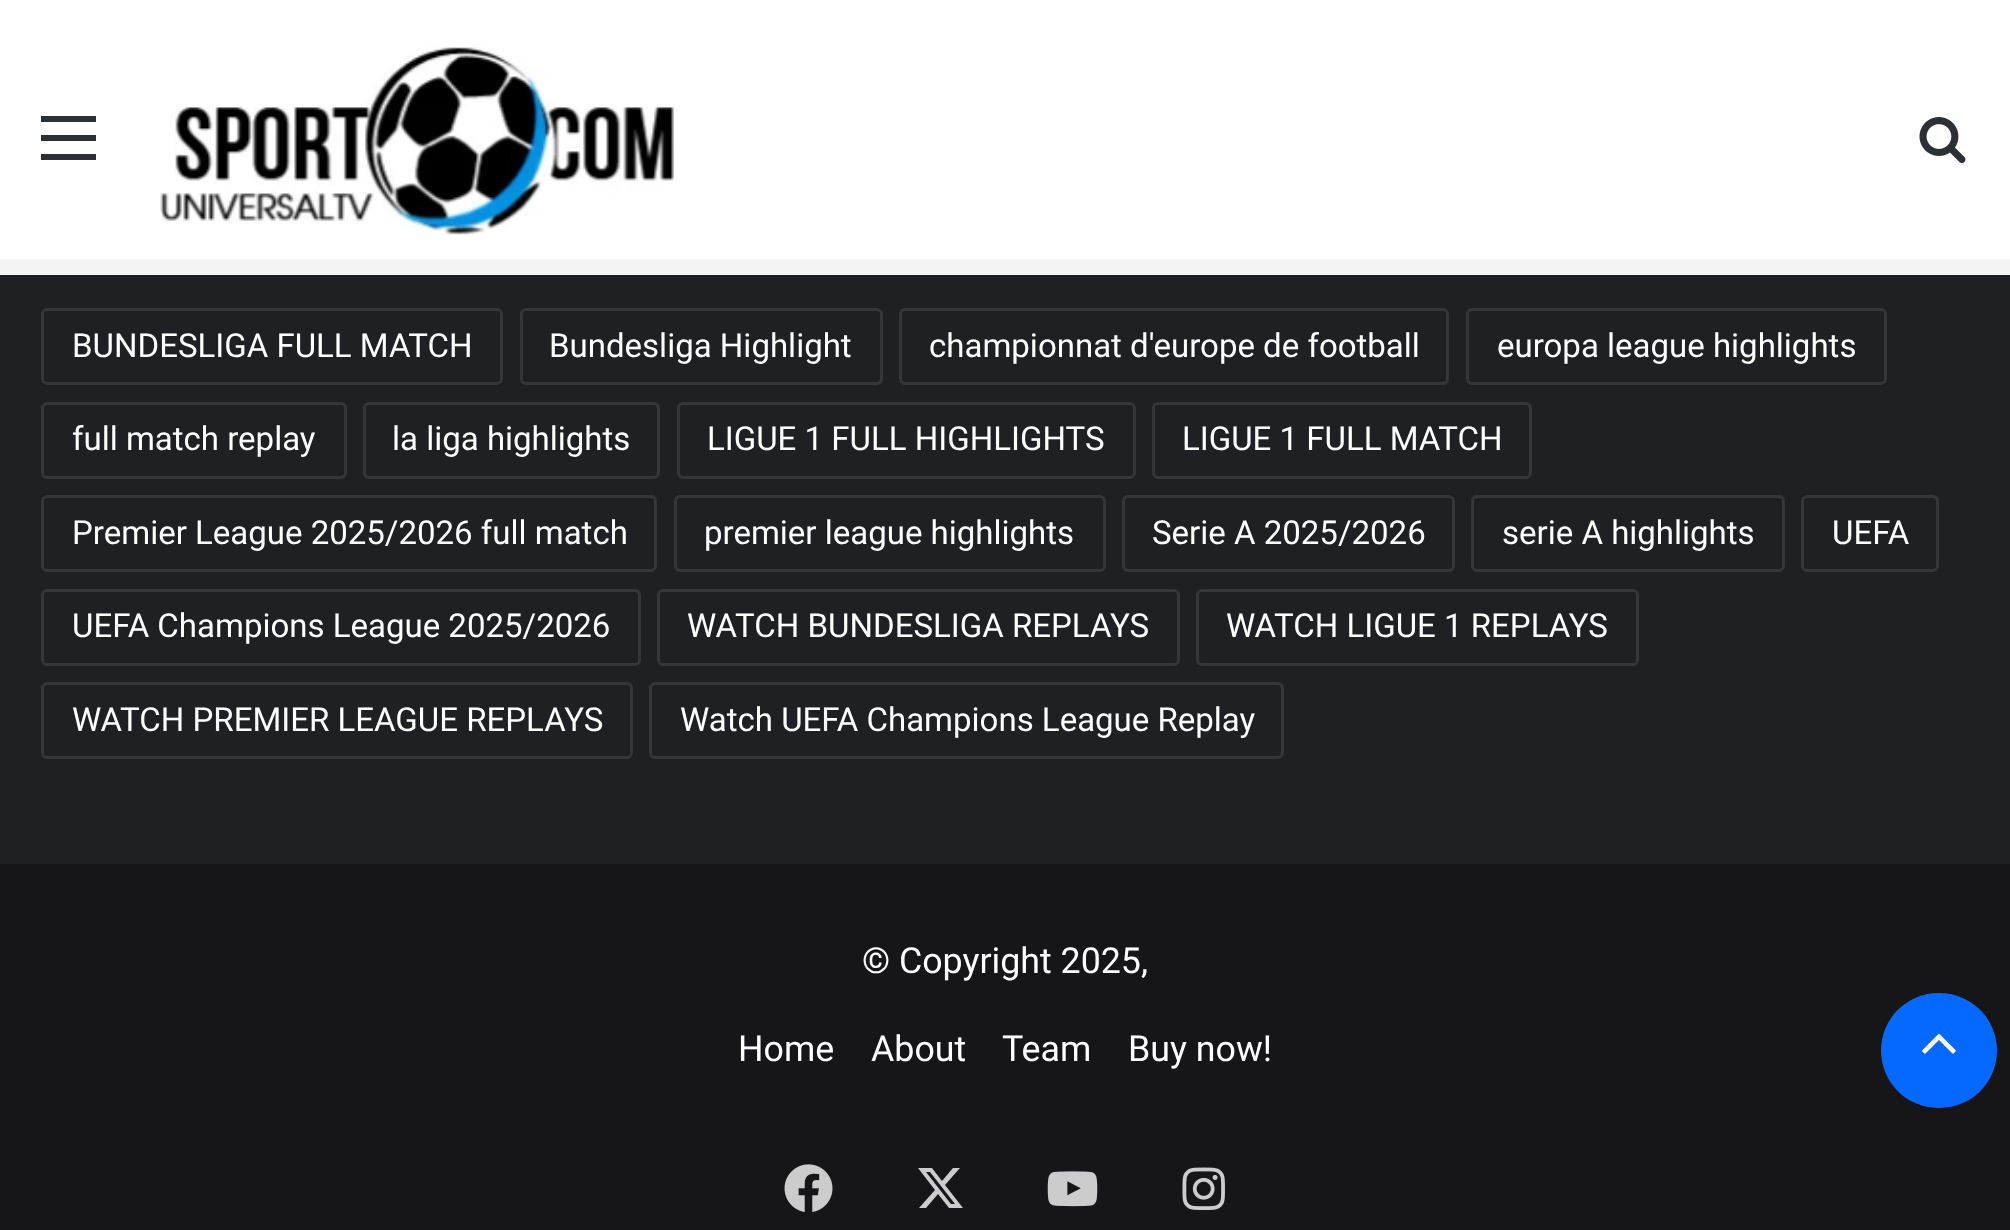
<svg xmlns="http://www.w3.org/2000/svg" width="2010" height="1230">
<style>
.a{font:33px Roboto;fill:#fff}
.b{font:35.75px Roboto;fill:#fff}
</style>
<rect width="100%" height="100%" fill="#fff"/>
<path fill="#2c2f34" d="M41 135h55v6H41z"/>
<path fill="#2c2f34" d="M41 116h55v6H41z"/>
<path fill="#2c2f34" d="M41 154h55v6H41z"/>
<image href="1.png" x="160" y="47" width="514" height="188"/>
<image href="2.png" x="1919" y="117" width="47" height="46"/>
<path fill="#1f2024" d="M0 275h2010v589H0z"/>
<path fill="#f4f4f4" d="M0 259h2010v16H0z"/>
<rect fill="none" stroke="#35363a" stroke-width="3" x="42.5" y="309.5" width="459" height="74" rx="4.5"/>
<rect fill="none" stroke="#35363a" stroke-width="3" x="521.5" y="309.5" width="360" height="74" rx="4.5"/>
<rect fill="none" stroke="#35363a" stroke-width="3" x="900.5" y="309.5" width="547" height="74" rx="4.5"/>
<rect fill="none" stroke="#35363a" stroke-width="3" x="1467.5" y="309.5" width="418" height="74" rx="4.5"/>
<rect fill="none" stroke="#35363a" stroke-width="3" x="42.5" y="403.5" width="303" height="74" rx="4.5"/>
<rect fill="none" stroke="#35363a" stroke-width="3" x="364.5" y="403.5" width="294" height="74" rx="4.5"/>
<rect fill="none" stroke="#35363a" stroke-width="3" x="678.5" y="403.5" width="456" height="74" rx="4.5"/>
<rect fill="none" stroke="#35363a" stroke-width="3" x="1153.5" y="403.5" width="377" height="74" rx="4.5"/>
<rect fill="none" stroke="#35363a" stroke-width="3" x="42.5" y="496.5" width="613" height="74" rx="4.5"/>
<rect fill="none" stroke="#35363a" stroke-width="3" x="675.5" y="496.5" width="429" height="74" rx="4.5"/>
<rect fill="none" stroke="#35363a" stroke-width="3" x="1123.5" y="496.5" width="330" height="74" rx="4.5"/>
<rect fill="none" stroke="#35363a" stroke-width="3" x="1472.5" y="496.5" width="311" height="74" rx="4.5"/>
<rect fill="none" stroke="#35363a" stroke-width="3" x="1802.5" y="496.5" width="135" height="74" rx="4.5"/>
<rect fill="none" stroke="#35363a" stroke-width="3" x="42.5" y="590.5" width="597" height="74" rx="4.5"/>
<rect fill="none" stroke="#35363a" stroke-width="3" x="658.5" y="590.5" width="520" height="74" rx="4.5"/>
<rect fill="none" stroke="#35363a" stroke-width="3" x="1197.5" y="590.5" width="440" height="74" rx="4.5"/>
<rect fill="none" stroke="#35363a" stroke-width="3" x="42.5" y="683.5" width="589" height="74" rx="4.5"/>
<rect fill="none" stroke="#35363a" stroke-width="3" x="650.5" y="683.5" width="632" height="74" rx="4.5"/>
<path fill="#161619" d="M0 864h2010v366H0z"/>
<image href="3.png" x="784" y="1164" width="49" height="48"/>
<path fill="#ccc" d="M953 1168h7l-15 17l18 23h-14l-11-14l-12 14h-7l16-18l-17-22h14l10 13zm-2 36h4l-25-32h-4z"/>
<image href="4.png" x="1047" y="1171" width="51" height="36"/>
<image href="5.png" x="1182" y="1167" width="43" height="43"/>
<rect fill="#0669ff" x="1881" y="993" width="116" height="115" rx="57.5"/>
<image href="6.png" x="1922" y="1034" width="34" height="20"/>
<text class="a" x="72" y="357">BUNDESLIGA FULL MATCH</text>
<text class="a" x="549" y="357">Bundesliga Highlight</text>
<text class="a" x="929" y="357">championnat d'europe de football</text>
<text class="a" x="1497" y="357">europa league highlights</text>
<text class="a" x="72" y="450">full match replay</text>
<text class="a" x="392" y="450">la liga highlights</text>
<text class="a" x="707" y="450">LIGUE 1 FULL HIGHLIGHTS</text>
<text class="a" x="1182" y="450">LIGUE 1 FULL MATCH</text>
<text class="a" x="72" y="544">Premier League 2025/2026 full match</text>
<text class="a" x="704" y="544">premier league highlights</text>
<text class="a" x="1152" y="544">Serie A 2025/2026</text>
<text class="a" x="1502" y="544">serie A highlights</text>
<text class="a" x="1832" y="544">UEFA</text>
<text class="a" x="72" y="637">UEFA Champions League 2025/2026</text>
<text class="a" x="687" y="637">WATCH BUNDESLIGA REPLAYS</text>
<text class="a" x="1226" y="637">WATCH LIGUE 1 REPLAYS</text>
<text class="a" x="72" y="731">WATCH PREMIER LEAGUE REPLAYS</text>
<text class="a" x="680" y="731">Watch UEFA Champions League Replay</text>
<text class="b" x="862" y="973">© Copyright 2025,</text>
<text class="b" x="738" y="1061">Home</text>
<text class="b" x="871" y="1061">About</text>
<text class="b" x="1002" y="1061">Team</text>
<text class="b" x="1128" y="1061">Buy now!</text>
</svg>
